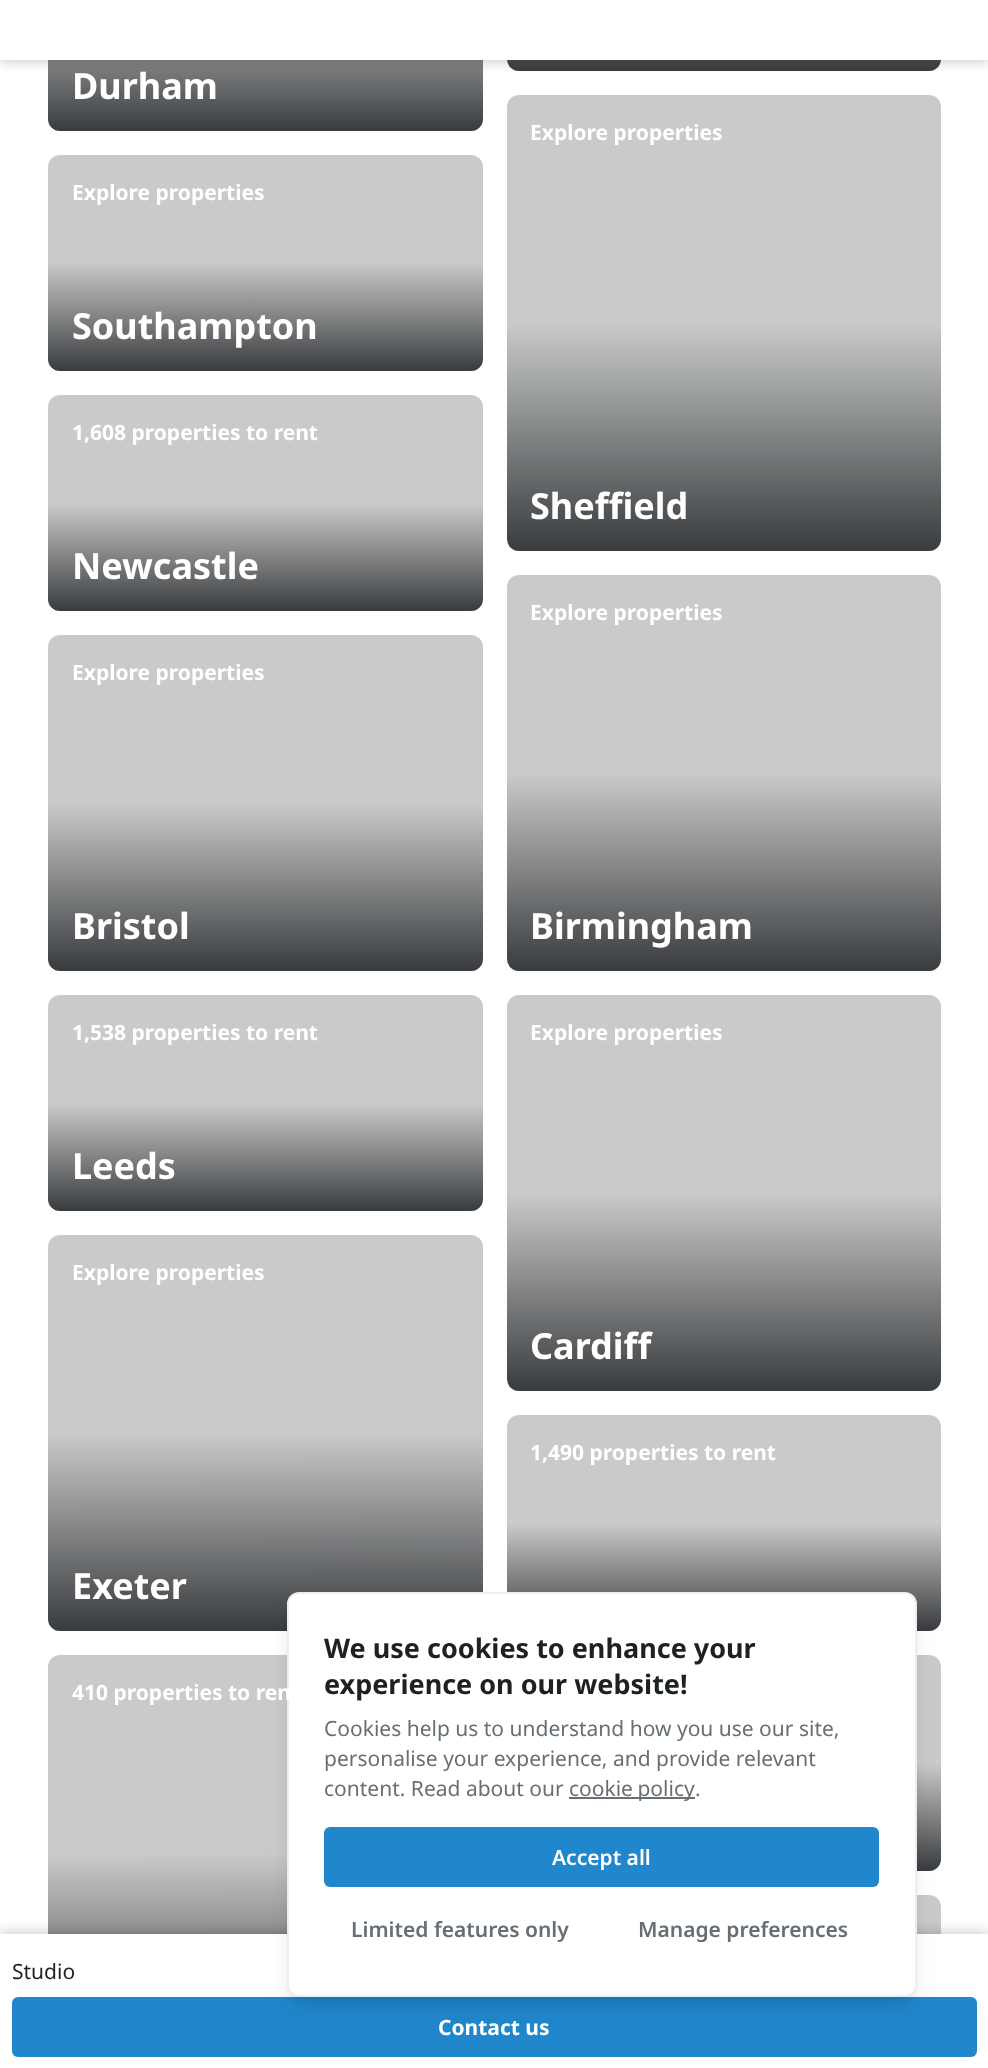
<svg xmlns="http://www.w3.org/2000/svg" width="988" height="2068">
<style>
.a{font:bold 36px Noto Sans;fill:#fff}
.b{font:bold 21px Noto Sans;fill:#fff}
.c{font:21px Noto Sans;fill:#1e2124}
.d{font:bold 27px Noto Sans;fill:#1e2124}
.e{font:21px Noto Sans;fill:#666f75}
.f{font:600 21px Noto Sans;fill:#fff}
.g{font:600 21px Noto Sans;fill:#666f75}
</style>
<defs>
<linearGradient id="g1" gradientUnits="userSpaceOnUse" x1="724" y1="-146" x2="724" y2="71"><stop offset="0.5" stop-color="#f4f4f4"/><stop offset="1" stop-color="#404245"/></linearGradient>
<linearGradient id="g2" gradientUnits="userSpaceOnUse" x1="266" y1="-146" x2="266" y2="131"><stop offset="0.5" stop-color="#f4f4f4"/><stop offset="1" stop-color="#404245"/></linearGradient>
<linearGradient id="g3" gradientUnits="userSpaceOnUse" x1="266" y1="154" x2="266" y2="371"><stop offset="0.5" stop-color="#f4f4f4"/><stop offset="1" stop-color="#404245"/></linearGradient>
<linearGradient id="g4" gradientUnits="userSpaceOnUse" x1="724" y1="94" x2="724" y2="551"><stop offset="0.5" stop-color="#f4f5f5"/><stop offset="1" stop-color="#404245"/></linearGradient>
<linearGradient id="g5" gradientUnits="userSpaceOnUse" x1="266" y1="395" x2="266" y2="611"><stop offset="0.5" stop-color="#f4f4f4"/><stop offset="1" stop-color="#404245"/></linearGradient>
<linearGradient id="g6" gradientUnits="userSpaceOnUse" x1="266" y1="635" x2="266" y2="971"><stop offset="0.5" stop-color="#f4f4f5"/><stop offset="1" stop-color="#404245"/></linearGradient>
<linearGradient id="g7" gradientUnits="userSpaceOnUse" x1="724" y1="575" x2="724" y2="971"><stop offset="0.5" stop-color="#f4f4f5"/><stop offset="1" stop-color="#404245"/></linearGradient>
<linearGradient id="g8" gradientUnits="userSpaceOnUse" x1="266" y1="995" x2="266" y2="1211"><stop offset="0.5" stop-color="#f4f4f4"/><stop offset="1" stop-color="#404245"/></linearGradient>
<linearGradient id="g9" gradientUnits="userSpaceOnUse" x1="724" y1="995" x2="724" y2="1391"><stop offset="0.5" stop-color="#f4f4f5"/><stop offset="1" stop-color="#404245"/></linearGradient>
<linearGradient id="g10" gradientUnits="userSpaceOnUse" x1="265" y1="1235" x2="266" y2="1631"><stop offset="0.5" stop-color="#f4f4f5"/><stop offset="1" stop-color="#404245"/></linearGradient>
<linearGradient id="g11" gradientUnits="userSpaceOnUse" x1="724" y1="1415" x2="724" y2="1631"><stop offset="0.5" stop-color="#f4f4f4"/><stop offset="1" stop-color="#404245"/></linearGradient>
<linearGradient id="g12" gradientUnits="userSpaceOnUse" x1="265" y1="1655" x2="266" y2="2051"><stop offset="0.5" stop-color="#f4f4f5"/><stop offset="1" stop-color="#404245"/></linearGradient>
<linearGradient id="g13" gradientUnits="userSpaceOnUse" x1="724" y1="1655" x2="724" y2="1871"><stop offset="0.5" stop-color="#f4f4f4"/><stop offset="1" stop-color="#404245"/></linearGradient>
<linearGradient id="g14" gradientUnits="userSpaceOnUse" x1="724" y1="1895" x2="724" y2="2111"><stop offset="0.5" stop-color="#f4f4f4"/><stop offset="1" stop-color="#404245"/></linearGradient>
</defs>
<rect width="100%" height="100%" fill="#fff"/>
<rect fill="url(#g1)" x="507" y="-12" width="434" height="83" rx="12"/>
<rect fill="#1e212433" x="507" y="-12" width="434" height="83" rx="12"/>
<rect fill="url(#g2)" x="48" y="-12" width="435" height="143" rx="12"/>
<rect fill="#1e212433" x="48" y="-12" width="435" height="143" rx="12"/>
<path fill="#1e212433" filter="blur(6px)" d="M0 3h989v60H0z"/>
<path fill="#fff" d="M0 0h988v60H0z"/>
<rect fill="url(#g3)" x="48" y="155" width="435" height="216" rx="12"/>
<rect fill="#1e212433" x="48" y="155" width="435" height="216" rx="12"/>
<rect fill="url(#g4)" x="507" y="95" width="434" height="456" rx="12"/>
<rect fill="#1e212433" x="507" y="95" width="434" height="456" rx="12"/>
<rect fill="url(#g5)" x="48" y="395" width="435" height="216" rx="12"/>
<rect fill="#1e212433" x="48" y="395" width="435" height="216" rx="12"/>
<rect fill="url(#g6)" x="48" y="635" width="435" height="336" rx="12"/>
<rect fill="#1e212433" x="48" y="635" width="435" height="336" rx="12"/>
<rect fill="url(#g7)" x="507" y="575" width="434" height="396" rx="12"/>
<rect fill="#1e212433" x="507" y="575" width="434" height="396" rx="12"/>
<rect fill="url(#g8)" x="48" y="995" width="435" height="216" rx="12"/>
<rect fill="#1e212433" x="48" y="995" width="435" height="216" rx="12"/>
<rect fill="url(#g9)" x="507" y="995" width="434" height="396" rx="12"/>
<rect fill="#1e212433" x="507" y="995" width="434" height="396" rx="12"/>
<rect fill="url(#g10)" x="48" y="1235" width="435" height="396" rx="12"/>
<rect fill="#1e212433" x="48" y="1235" width="435" height="396" rx="12"/>
<rect fill="url(#g11)" x="507" y="1415" width="434" height="216" rx="12"/>
<rect fill="#1e212433" x="507" y="1415" width="434" height="216" rx="12"/>
<rect fill="url(#g12)" x="48" y="1655" width="435" height="396" rx="12"/>
<rect fill="#1e212433" x="48" y="1655" width="435" height="396" rx="12"/>
<rect fill="url(#g13)" x="507" y="1655" width="434" height="216" rx="12"/>
<rect fill="#1e212433" x="507" y="1655" width="434" height="216" rx="12"/>
<rect fill="url(#g14)" x="507" y="1895" width="434" height="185" rx="12"/>
<rect fill="#1e212433" x="507" y="1895" width="434" height="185" rx="12"/>
<path fill="#1e212433" filter="blur(6px)" d="M0 1931h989v135H0z"/>
<path fill="#fff" d="M0 1934h988v134H0z"/>
<rect fill="#2087cc" x="12" y="1997" width="965" height="60" rx="6"/>
<rect fill="#0000001a" filter="blur(4.5px)" x="293" y="1604" width="618" height="393" rx="6"/>
<rect fill="#0000001a" filter="blur(11px)" x="291" y="1611" width="621" height="396" rx="8"/>
<rect fill="#fff" stroke="#eceef0" stroke-width="2" x="288" y="1593" width="628" height="403" rx="11"/>
<path fill="#666f75" d="M569 1797h126v2H569z"/>
<rect fill="#2087cc" x="324" y="1827" width="555" height="60" rx="6"/>
<text class="a" x="72" y="99">Durham</text>
<text class="b" x="72" y="200">Explore properties</text>
<text class="a" x="72" y="339">Southampton</text>
<text class="b" x="530" y="140">Explore properties</text>
<text class="a" x="530" y="519">Sheffield</text>
<text class="b" x="72" y="440">1,608 properties to rent</text>
<text class="a" x="72" y="579">Newcastle</text>
<text class="b" x="72" y="680">Explore properties</text>
<text class="a" x="72" y="939">Bristol</text>
<text class="b" x="530" y="620">Explore properties</text>
<text class="a" x="530" y="939">Birmingham</text>
<text class="b" x="72" y="1040">1,538 properties to rent</text>
<text class="a" x="72" y="1179">Leeds</text>
<text class="b" x="530" y="1040">Explore properties</text>
<text class="a" x="530" y="1359">Cardiff</text>
<text class="b" x="72" y="1280">Explore properties</text>
<text class="a" x="72" y="1599">Exeter</text>
<text class="b" x="530" y="1460">1,490 properties to rent</text>
<text class="b" x="72" y="1700">410 properties to ren</text>
<text class="c" x="12" y="1979">Studio</text>
<text class="b" x="438" y="2035">Contact us</text>
<text class="d" x="324" y="1658">We use cookies to enhance your</text>
<text class="d" x="324" y="1694">experience on our website!</text>
<text class="e" x="324" y="1736">Cookies help us to understand how you use our site,</text>
<text class="e" x="324" y="1766">personalise your experience, and provide relevant</text>
<text class="e" x="324" y="1796">content. Read about our</text>
<text class="e" x="569" y="1796" word-spacing="-1">cookie policy</text>
<text class="e" x="695" y="1796">.</text>
<text class="f" x="552" y="1865">Accept all</text>
<text class="g" x="351" y="1937">Limited features only</text>
<text class="g" x="638" y="1937">Manage preferences</text>
</svg>
